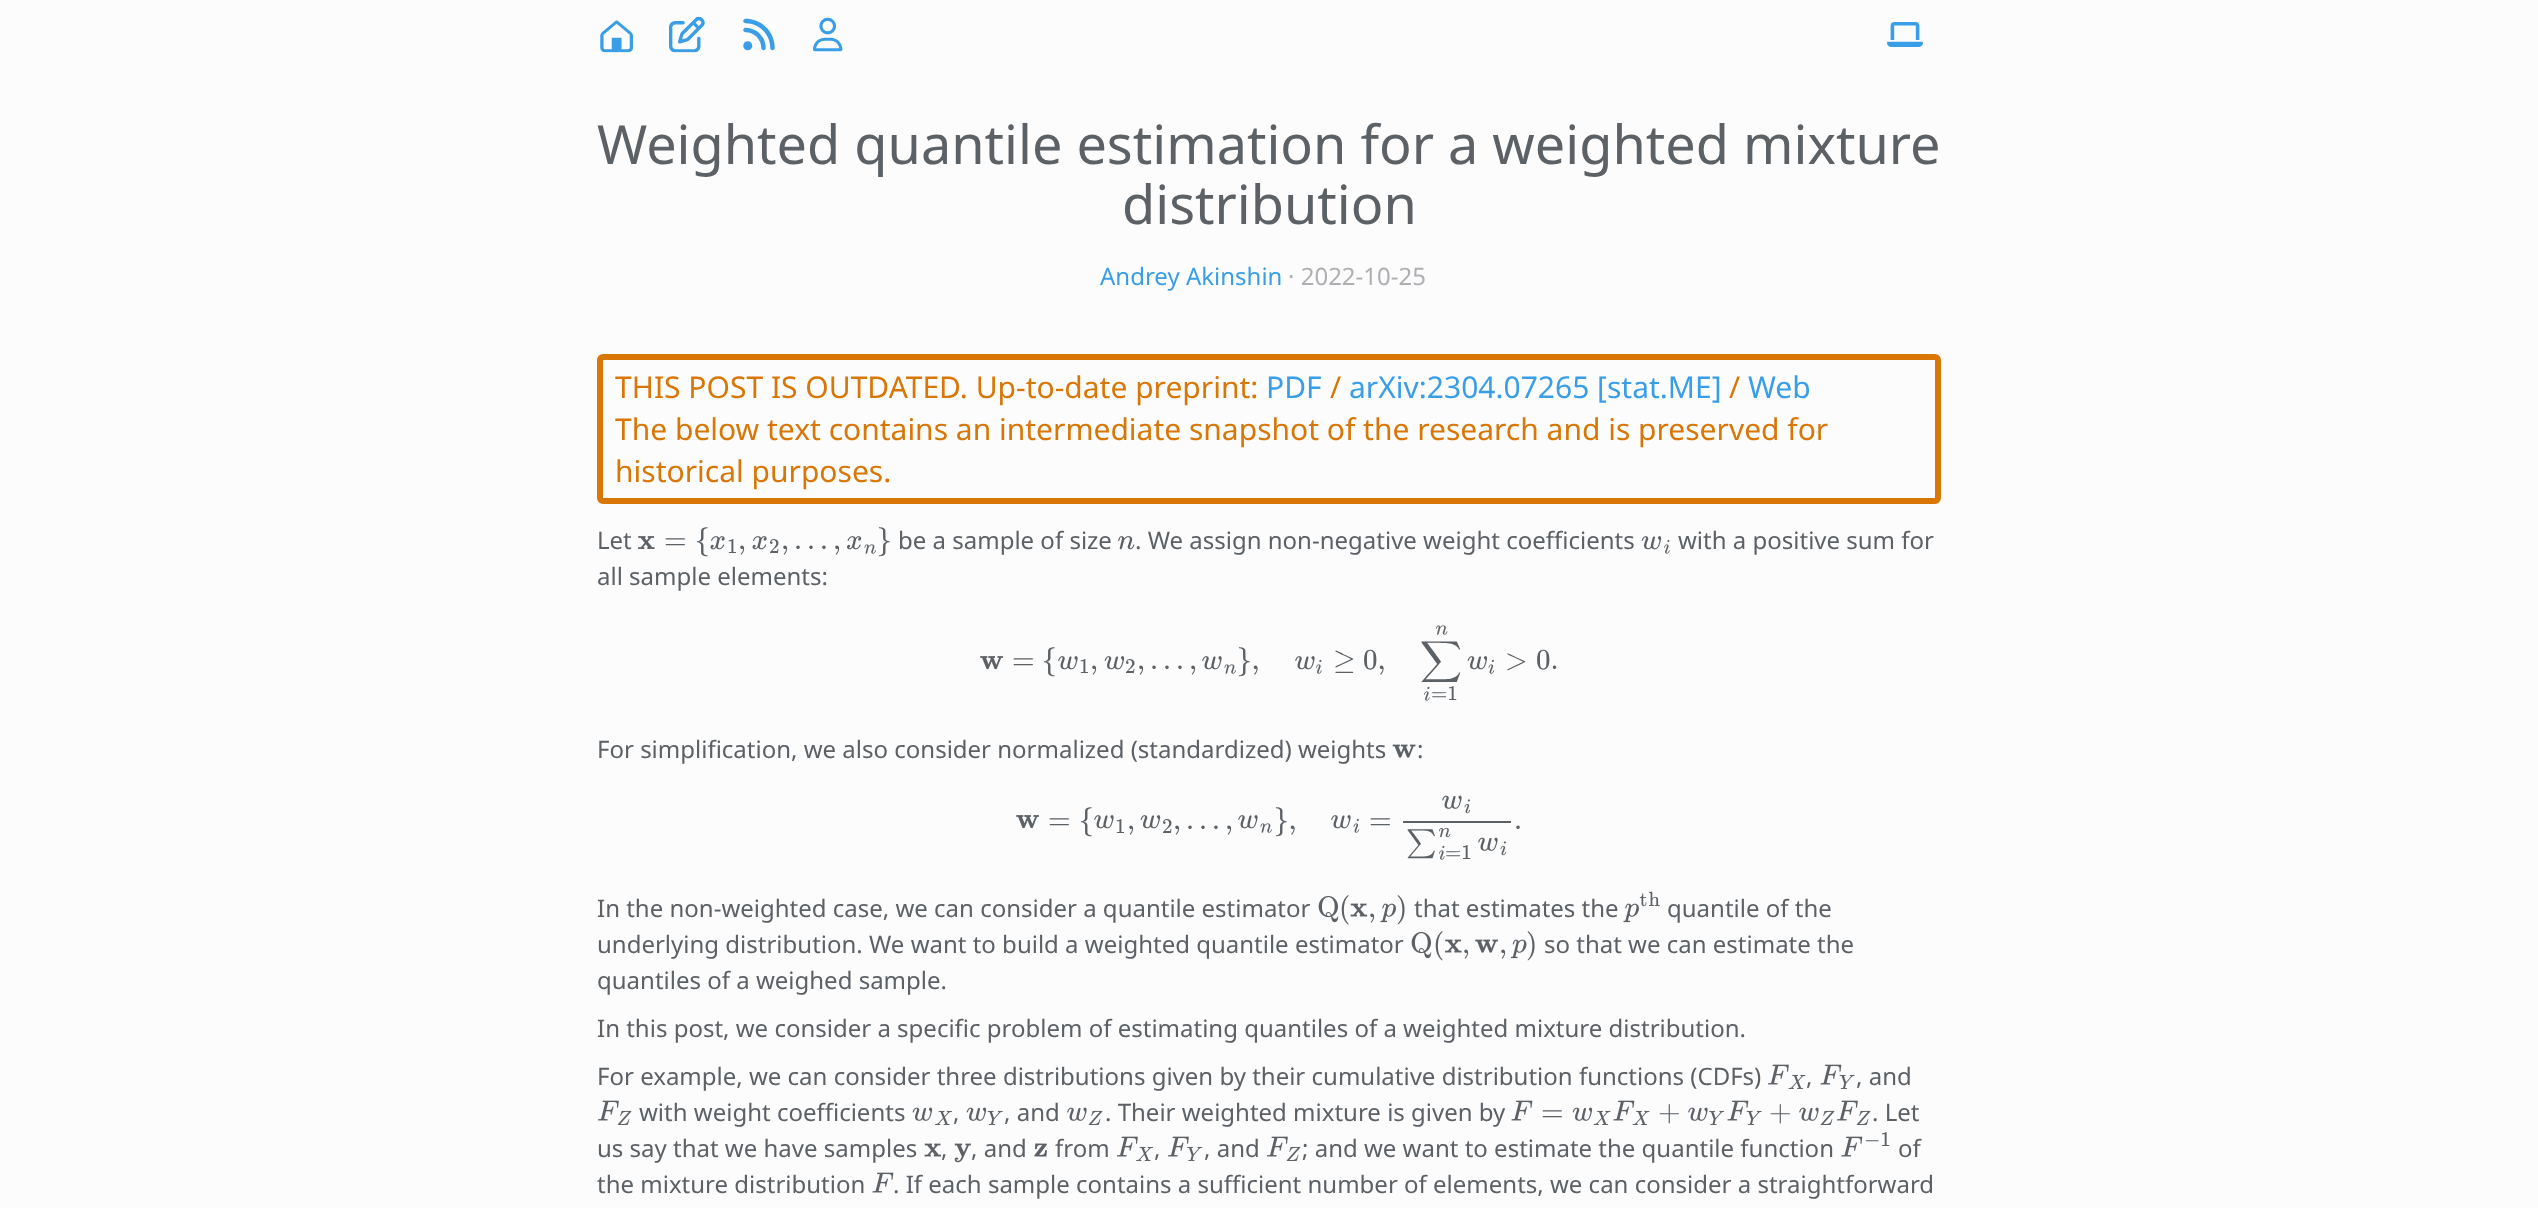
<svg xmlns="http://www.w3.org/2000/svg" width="2538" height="1208">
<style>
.a{font:54px Noto Sans;fill:#5c6166}
.b{font:24px Noto Sans;fill:#399ee6}
.c{font:24px Noto Sans;fill:#adafb2}
.d{font:30px Noto Sans;fill:#d97706}
.e{font:30px Noto Sans;fill:#399ee6}
.f{font:24px Noto Sans;fill:#5c6166}
.g{font:29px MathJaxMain;fill:#5c6166}
.h{font:21px MathJaxMain;fill:#5c6166}
.i{font:29px 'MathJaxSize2';fill:#5c6166}
.j{font:29px 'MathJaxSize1';fill:#5c6166}
</style>
<rect width="100%" height="100%" fill="#fcfcfc"/>
<image href="1.png" x="600" y="20" width="33" height="33"/>
<image href="2.png" x="669" y="16" width="36" height="37"/>
<image href="3.png" x="743" y="18" width="32" height="33"/>
<image href="4.png" x="813" y="17" width="30" height="35"/>
<image href="5.png" x="1887" y="22" width="36" height="25"/>
<rect fill="none" stroke="#d97706" stroke-width="6" x="600" y="357" width="1338" height="144" rx="3"/>
<image href="6.png" x="638" y="536" width="17" height="13"/>
<image href="7.png" x="710" y="536" width="15" height="14"/>
<image href="7.png" x="752" y="536" width="15" height="14"/>
<image href="8.png" x="847" y="536" width="15" height="14"/>
<image href="9.png" x="864" y="544" width="12" height="10"/>
<image href="10.png" x="1118" y="536" width="17" height="14"/>
<image href="11.png" x="1641" y="536" width="21" height="14"/>
<image href="12.png" x="1664" y="539" width="6" height="15"/>
<image href="13.png" x="980" y="656" width="23" height="14"/>
<image href="14.png" x="1058" y="656" width="20" height="14"/>
<image href="11.png" x="1104" y="656" width="21" height="14"/>
<image href="14.png" x="1202" y="656" width="20" height="14"/>
<image href="9.png" x="1224" y="664" width="12" height="10"/>
<image href="14.png" x="1295" y="656" width="20" height="14"/>
<image href="12.png" x="1316" y="659" width="6" height="15"/>
<image href="15.png" x="1436" y="625" width="12" height="10"/>
<image href="12.png" x="1424" y="686" width="6" height="15"/>
<image href="11.png" x="1467" y="656" width="21" height="14"/>
<image href="16.png" x="1488" y="659" width="7" height="15"/>
<image href="17.png" x="1392" y="744" width="24" height="14"/>
<image href="13.png" x="1016" y="815" width="23" height="14"/>
<image href="14.png" x="1094" y="815" width="20" height="14"/>
<image href="11.png" x="1140" y="815" width="21" height="14"/>
<image href="14.png" x="1238" y="815" width="20" height="14"/>
<image href="9.png" x="1260" y="823" width="12" height="10"/>
<image href="14.png" x="1331" y="815" width="20" height="14"/>
<image href="16.png" x="1353" y="818" width="7" height="15"/>
<image href="18.png" x="1442" y="795" width="20" height="14"/>
<image href="19.png" x="1464" y="799" width="7" height="15"/>
<path fill="#5c6166" d="M1403 821h108v2H1403z"/>
<image href="20.png" x="1439" y="827" width="12" height="11"/>
<image href="12.png" x="1439" y="845" width="6" height="15"/>
<image href="18.png" x="1478" y="837" width="20" height="14"/>
<image href="19.png" x="1500" y="841" width="7" height="15"/>
<image href="21.png" x="1318" y="896" width="21" height="27"/>
<image href="22.png" x="1350" y="903" width="18" height="14"/>
<image href="23.png" x="1380" y="903" width="16" height="20"/>
<image href="24.png" x="1639" y="893" width="8" height="14"/>
<image href="25.png" x="1649" y="891" width="11" height="15"/>
<image href="23.png" x="1623" y="903" width="16" height="20"/>
<image href="21.png" x="1411" y="932" width="21" height="27"/>
<image href="26.png" x="1445" y="939" width="17" height="14"/>
<image href="27.png" x="1475" y="939" width="23" height="14"/>
<image href="28.png" x="1510" y="939" width="17" height="20"/>
<image href="29.png" x="1768" y="1064" width="21" height="21"/>
<image href="30.png" x="1788" y="1074" width="18" height="15"/>
<image href="31.png" x="1820" y="1064" width="22" height="21"/>
<image href="32.png" x="1839" y="1074" width="16" height="15"/>
<image href="29.png" x="598" y="1100" width="21" height="21"/>
<image href="33.png" x="617" y="1110" width="15" height="15"/>
<image href="34.png" x="912" y="1107" width="21" height="14"/>
<image href="35.png" x="935" y="1110" width="17" height="15"/>
<image href="34.png" x="966" y="1107" width="21" height="14"/>
<image href="32.png" x="987" y="1110" width="16" height="15"/>
<image href="18.png" x="1067" y="1107" width="20" height="14"/>
<image href="33.png" x="1088" y="1110" width="15" height="15"/>
<image href="31.png" x="1511" y="1100" width="22" height="21"/>
<image href="34.png" x="1572" y="1107" width="21" height="14"/>
<image href="30.png" x="1593" y="1110" width="18" height="15"/>
<image href="31.png" x="1613" y="1100" width="22" height="21"/>
<image href="30.png" x="1632" y="1110" width="18" height="15"/>
<image href="18.png" x="1688" y="1107" width="20" height="14"/>
<image href="36.png" x="1709" y="1110" width="16" height="15"/>
<image href="31.png" x="1727" y="1100" width="22" height="21"/>
<image href="32.png" x="1746" y="1110" width="16" height="15"/>
<image href="18.png" x="1799" y="1107" width="20" height="14"/>
<image href="33.png" x="1820" y="1110" width="15" height="15"/>
<image href="29.png" x="1837" y="1100" width="21" height="21"/>
<image href="33.png" x="1856" y="1110" width="15" height="15"/>
<image href="22.png" x="924" y="1143" width="18" height="14"/>
<image href="37.png" x="954" y="1143" width="17" height="20"/>
<image href="38.png" x="1034" y="1143" width="13" height="14"/>
<image href="29.png" x="1117" y="1136" width="21" height="21"/>
<image href="35.png" x="1136" y="1146" width="17" height="15"/>
<image href="29.png" x="1168" y="1136" width="21" height="21"/>
<image href="36.png" x="1187" y="1146" width="16" height="15"/>
<image href="29.png" x="1267" y="1136" width="21" height="21"/>
<image href="33.png" x="1286" y="1146" width="15" height="15"/>
<image href="31.png" x="1841" y="1136" width="22" height="21"/>
<image href="31.png" x="872" y="1172" width="22" height="21"/>
<text class="a" x="597" y="164">Weighted quantile estimation for a weighted mixture</text>
<text class="a" x="1122" y="224">distribution</text>
<text class="b" x="1100" y="285">Andrey Akinshin</text>
<text class="c" x="1288" y="285">· 2022-10-25</text>
<text class="d" x="615" y="398">THIS POST IS OUTDATED. Up-to-date preprint:</text>
<text class="e" x="1266" y="398">PDF</text>
<text class="d" x="1330" y="398">/</text>
<text class="e" x="1349" y="398">arXiv:2304.07265 [stat.ME]</text>
<text class="d" x="1729" y="398">/</text>
<text class="e" x="1748" y="398">Web</text>
<text class="d" x="615" y="440">The below text contains an intermediate snapshot of the research and is preserved for</text>
<text class="d" x="615" y="482">historical purposes.</text>
<text class="f" x="597" y="549">Let</text>
<text class="g" x="664" y="549">=</text>
<text class="g" x="695" y="549">{</text>
<text class="h" x="727" y="553">1</text>
<text class="g" x="738" y="549">,</text>
<text class="h" x="769" y="553">2</text>
<text class="g" x="781" y="549">,</text>
<text class="g" x="794" y="549">…</text>
<text class="g" x="833" y="549">,</text>
<text class="g" x="877" y="549">}</text>
<text class="f" x="898" y="549">be a sample of size</text>
<text class="f" x="1135" y="549">. We assign non-negative weight coefficients</text>
<text class="f" x="1678" y="549">with a positive sum for</text>
<text class="f" x="597" y="585">all sample elements:</text>
<text class="g" x="1012" y="669">=</text>
<text class="g" x="1042" y="669">{</text>
<text class="h" x="1079" y="673">1</text>
<text class="g" x="1090" y="669">,</text>
<text class="h" x="1125" y="673">2</text>
<text class="g" x="1137" y="669">,</text>
<text class="g" x="1150" y="669">…</text>
<text class="g" x="1189" y="669">,</text>
<text class="g" x="1237" y="669">},</text>
<text class="g" x="1333" y="669">≥</text>
<text class="g" x="1363" y="669">0,</text>
<text class="i" x="1420" y="669">∑</text>
<text class="h" x="1431" y="700">=1</text>
<text class="g" x="1505" y="669">&gt;</text>
<text class="g" x="1536" y="669">0.</text>
<text class="f" x="597" y="758">For simplification, we also consider normalized (standardized) weights</text>
<text class="f" x="1417" y="758">:</text>
<text class="g" x="1048" y="829">=</text>
<text class="g" x="1079" y="829">{</text>
<text class="h" x="1115" y="833">1</text>
<text class="g" x="1127" y="829">,</text>
<text class="h" x="1162" y="833">2</text>
<text class="g" x="1173" y="829">,</text>
<text class="g" x="1186" y="829">…</text>
<text class="g" x="1225" y="829">,</text>
<text class="g" x="1274" y="829">},</text>
<text class="g" x="1369" y="829">=</text>
<text class="g" x="1514" y="829">.</text>
<text class="j" x="1406" y="851">∑</text>
<text class="h" x="1445" y="859">=1</text>
<text class="f" x="597" y="917">In the non-weighted case, we can consider a quantile estimator</text>
<text class="g" x="1339" y="917">(</text>
<text class="g" x="1368" y="917">,</text>
<text class="g" x="1396" y="917">)</text>
<text class="f" x="1414" y="917">that estimates the</text>
<text class="f" x="1667" y="917">quantile of the</text>
<text class="f" x="597" y="953">underlying distribution. We want to build a weighted quantile estimator</text>
<text class="g" x="1433" y="953">(</text>
<text class="g" x="1462" y="953">,</text>
<text class="g" x="1499" y="953">,</text>
<text class="g" x="1526" y="953">)</text>
<text class="f" x="1544" y="953">so that we can estimate the</text>
<text class="f" x="597" y="989">quantiles of a weighed sample.</text>
<text class="f" x="597" y="1037">In this post, we consider a specific problem of estimating quantiles of a weighted mixture distribution.</text>
<text class="f" x="597" y="1085">For example, we can consider three distributions given by their cumulative distribution functions (CDFs)</text>
<text class="f" x="1806" y="1085">,</text>
<text class="f" x="1856" y="1085">, and</text>
<text class="f" x="639" y="1121">with weight coefficients</text>
<text class="f" x="953" y="1121">,</text>
<text class="f" x="1004" y="1121">, and</text>
<text class="f" x="1105" y="1121">. Their weighted mixture is given by</text>
<text class="g" x="1541" y="1121">=</text>
<text class="g" x="1658" y="1121">+</text>
<text class="g" x="1769" y="1121">+</text>
<text class="f" x="1872" y="1121">. Let</text>
<text class="f" x="597" y="1157">us say that we have samples</text>
<text class="f" x="941" y="1157">,</text>
<text class="f" x="971" y="1157">, and</text>
<text class="f" x="1055" y="1157">from</text>
<text class="f" x="1154" y="1157">,</text>
<text class="f" x="1204" y="1157">, and</text>
<text class="f" x="1302" y="1157">; and we want to estimate the quantile function</text>
<text class="h" x="1864" y="1146">−1</text>
<text class="f" x="1898" y="1157">of</text>
<text class="f" x="597" y="1193">the mixture distribution</text>
<text class="f" x="893" y="1193">. If each sample contains a sufficient number of elements, we can consider a straightforward</text>
</svg>
